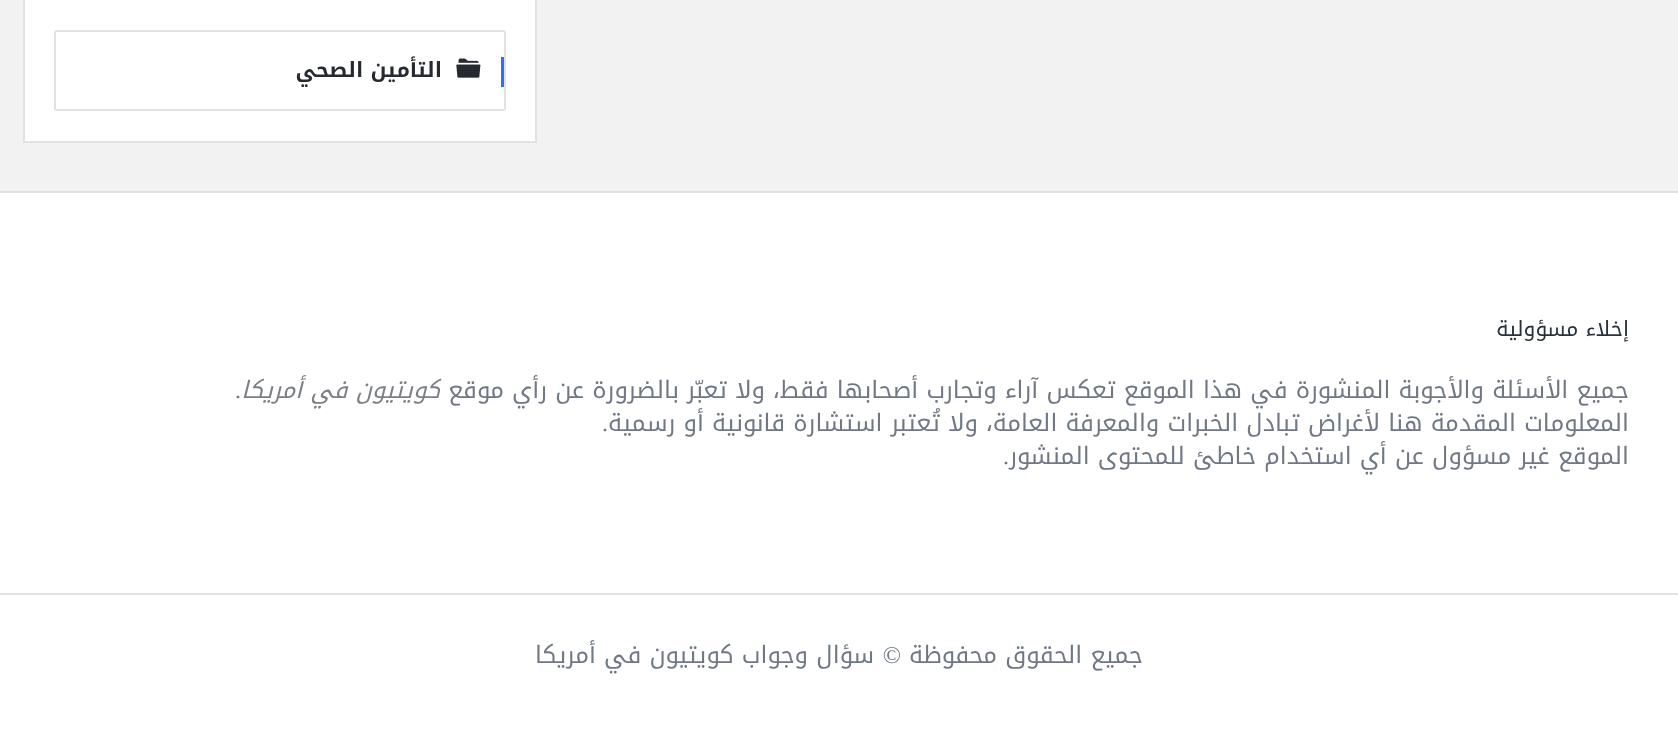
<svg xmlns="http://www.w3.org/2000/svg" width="1678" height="746">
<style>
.a{font:bold 21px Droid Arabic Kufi;direction:rtl;fill:#272930}
.b{font:21px Droid Arabic Kufi;direction:rtl;fill:#26333b}
.c{font:24px Droid Arabic Kufi;direction:rtl;fill:#707885}
.d{font:italic 24px Droid Arabic Kufi;direction:rtl;fill:#7c7f85}
.e{font:24px Liberation Serif;fill:#707885}
.f{font:24px Liberation Serif;direction:rtl;fill:#707885}
</style>
<defs>
<clipPath id="clip1"><path d="M78 54h404v33H78z"/></clipPath>
</defs>
<rect width="100%" height="100%" fill="#f2f2f2"/>
<path fill="#fff" stroke="#e1e3e3" stroke-width="2" d="M24 -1h512v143H24z"/>
<rect fill="none" stroke="#e1e3e3" stroke-width="2" x="55" y="31" width="450" height="79" rx="2"/>
<path fill="#2d6ff7" d="M501 57h3v30H501z"/>
<image href="1.png" x="456" y="58" width="25" height="20"/>
<path fill="#fff" d="M0 193h1678v553H0z"/>
<path fill="#e1e3e3" d="M0 191h1678v2H0z"/>
<path fill="#e1e3e3" d="M0 593h1678v2H0z"/>
<g clip-path="url(#clip1)">
<text class="a" x="442" y="77">التأمين الصحي</text>
</g>
<text class="b" x="1629" y="336">إخلاء مسؤولية</text>
<text class="c" x="1629" y="398">جميع الأسئلة والأجوبة المنشورة في هذا الموقع تعكس آراء وتجارب أصحابها فقط، ولا تعبّر بالضرورة عن رأي موقع</text>
<text class="d" x="440" y="398">كويتيون في أمريكا</text>
<text class="e" x="235" y="398">.</text>
<text class="c" x="1629" y="431">المعلومات المقدمة هنا لأغراض تبادل الخبرات والمعرفة العامة، ولا تُعتبر استشارة قانونية أو رسمية</text>
<text class="f" x="608" y="431">.</text>
<text class="c" x="1629" y="464">الموقع غير مسؤول عن أي استخدام خاطئ للمحتوى المنشور</text>
<text class="f" x="1009" y="464">.</text>
<text class="c" x="1143" y="663">جميع الحقوق محفوظة</text>
<text class="f" x="901" y="663">©</text>
<text class="c" x="874" y="663">سؤال وجواب كويتيون في أمريكا</text>
</svg>
